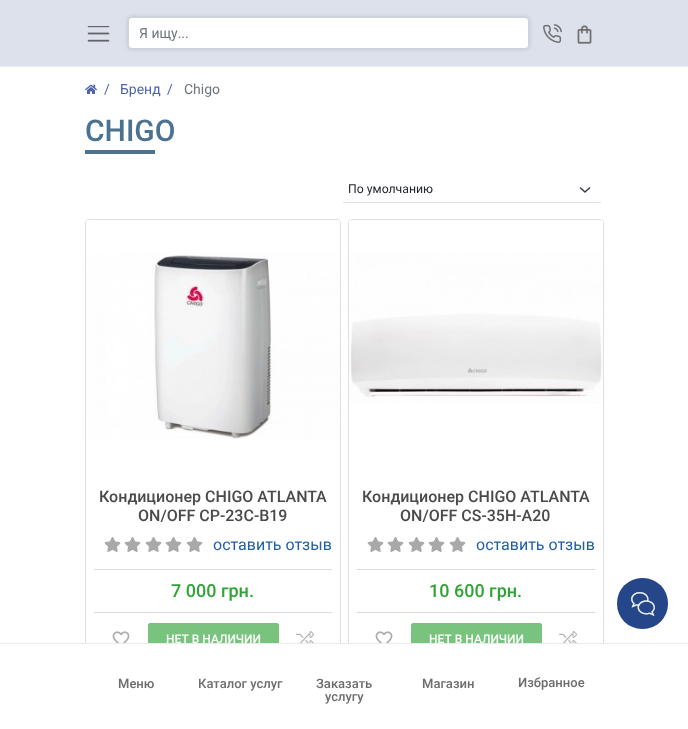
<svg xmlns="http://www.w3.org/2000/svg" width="688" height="729">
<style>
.a{font:14px Roboto;fill:#6c757d}
.b{font:14px Roboto;fill:#4d62a8}
.c{font:500 30px Roboto;fill:#4b7290}
.d{font:12.25px Roboto;fill:#212529}
.e{font:500 16px Roboto;fill:#4b4a4a}
.f{font:16px Roboto;fill:#1f5fa6}
.g{font:500 18px Roboto;fill:#30a337}
.h{font:500 12px Roboto;fill:#fff}
.i{font:500 13px Roboto;fill:#6d6d6d}
</style>
<rect width="100%" height="100%" fill="#fff"/>
<path fill="#dde1ec" d="M0 0h688v66H0z"/>
<path fill="#ebebeb" d="M0 66h688v1H0z"/>
<image href="1.png" x="87" y="26" width="23" height="16"/>
<rect fill="#00000029" filter="blur(2px)" x="128" y="17" width="401" height="32" rx="4"/>
<rect fill="#fff" stroke="#ced4da" x="128.5" y="17.5" width="400" height="31" rx="3.5"/>
<image href="2.png" x="543" y="24" width="19" height="19"/>
<image href="3.png" x="577" y="25" width="15" height="19"/>
<image href="4.png" x="85" y="84" width="12" height="10"/>
<path fill="#4b7290" d="M85 150h70v4H85z"/>
<path fill="none" stroke="#343a40" stroke-width="1.5" stroke-linecap="round" stroke-linejoin="round" d="M580.5 188l4.5 4l4.5-4"/>
<path fill="#dde1ec" d="M343 202h258v1H343z"/>
<rect fill="none" stroke="#dfdfdf" x="85.5" y="219.5" width="255" height="447" rx="3.5"/>
<image href="5.png" x="86" y="220" width="254" height="219"/>
<image href="6.png" x="104" y="537" width="17" height="15"/>
<image href="6.png" x="124" y="537" width="17" height="15"/>
<image href="6.png" x="145" y="537" width="17" height="15"/>
<image href="6.png" x="165" y="537" width="17" height="15"/>
<image href="6.png" x="186" y="537" width="17" height="15"/>
<path fill="#dbdbdb" d="M94 569h238v1H94z"/>
<path fill="#dbdbdb" d="M94 612h238v1H94z"/>
<image href="7.png" x="112" y="631" width="18" height="12"/>
<rect fill="#78c37d" stroke="#78c37d" x="148.5" y="623.5" width="130" height="32" rx="1.5"/>
<image href="8.png" x="296" y="631" width="18" height="12"/>
<rect fill="none" stroke="#dfdfdf" x="348.5" y="219.5" width="255" height="447" rx="3.5"/>
<image href="9.png" x="349" y="220" width="254" height="183"/>
<image href="6.png" x="367" y="537" width="17" height="15"/>
<image href="6.png" x="387" y="537" width="17" height="15"/>
<image href="6.png" x="408" y="537" width="17" height="15"/>
<image href="6.png" x="428" y="537" width="17" height="15"/>
<image href="6.png" x="449" y="537" width="17" height="15"/>
<path fill="#dbdbdb" d="M357 569h238v1H357z"/>
<path fill="#dbdbdb" d="M357 612h238v1H357z"/>
<image href="7.png" x="375" y="631" width="18" height="12"/>
<rect fill="#78c37d" stroke="#78c37d" x="411.5" y="623.5" width="130" height="32" rx="1.5"/>
<image href="8.png" x="559" y="631" width="18" height="12"/>
<rect fill="#254789" x="617" y="578" width="51" height="51" rx="25"/>
<image href="10.png" x="631" y="592" width="24" height="24"/>
<path fill="#fff" d="M85 644h519v23H85z"/>
<path fill="#ebebeb" d="M0 643h688v1H0z"/>
<text class="a" x="139" y="38">Я ищу...</text>
<text class="b" x="104" y="94">/</text>
<text class="b" x="120" y="94">Бренд</text>
<text class="b" x="167" y="94">/</text>
<text class="a" x="184" y="94">Chigo</text>
<text class="c" x="85" y="141">CHIGO</text>
<text class="d" x="348" y="193">По умолчанию</text>
<text class="e" x="99" y="502">Кондиционер CHIGO ATLANTA</text>
<text class="e" x="138" y="521">ON/OFF CP-23C-B19</text>
<text class="f" x="213" y="550">оставить отзыв</text>
<text class="g" x="171" y="597">7 000 грн.</text>
<text class="h" x="166" y="643">НЕТ В НАЛИЧИИ</text>
<text class="e" x="362" y="502">Кондиционер CHIGO ATLANTA</text>
<text class="e" x="400" y="521">ON/OFF CS-35H-A20</text>
<text class="f" x="476" y="550">оставить отзыв</text>
<text class="g" x="429" y="597">10 600 грн.</text>
<text class="h" x="429" y="643">НЕТ В НАЛИЧИИ</text>
<text class="i" x="118" y="688">Меню</text>
<text class="i" x="198" y="688">Каталог услуг</text>
<text class="i" x="316" y="688">Заказать</text>
<text class="i" x="325" y="701">услугу</text>
<text class="i" x="422" y="688">Магазин</text>
<text class="i" x="518" y="687">Избранное</text>
</svg>
